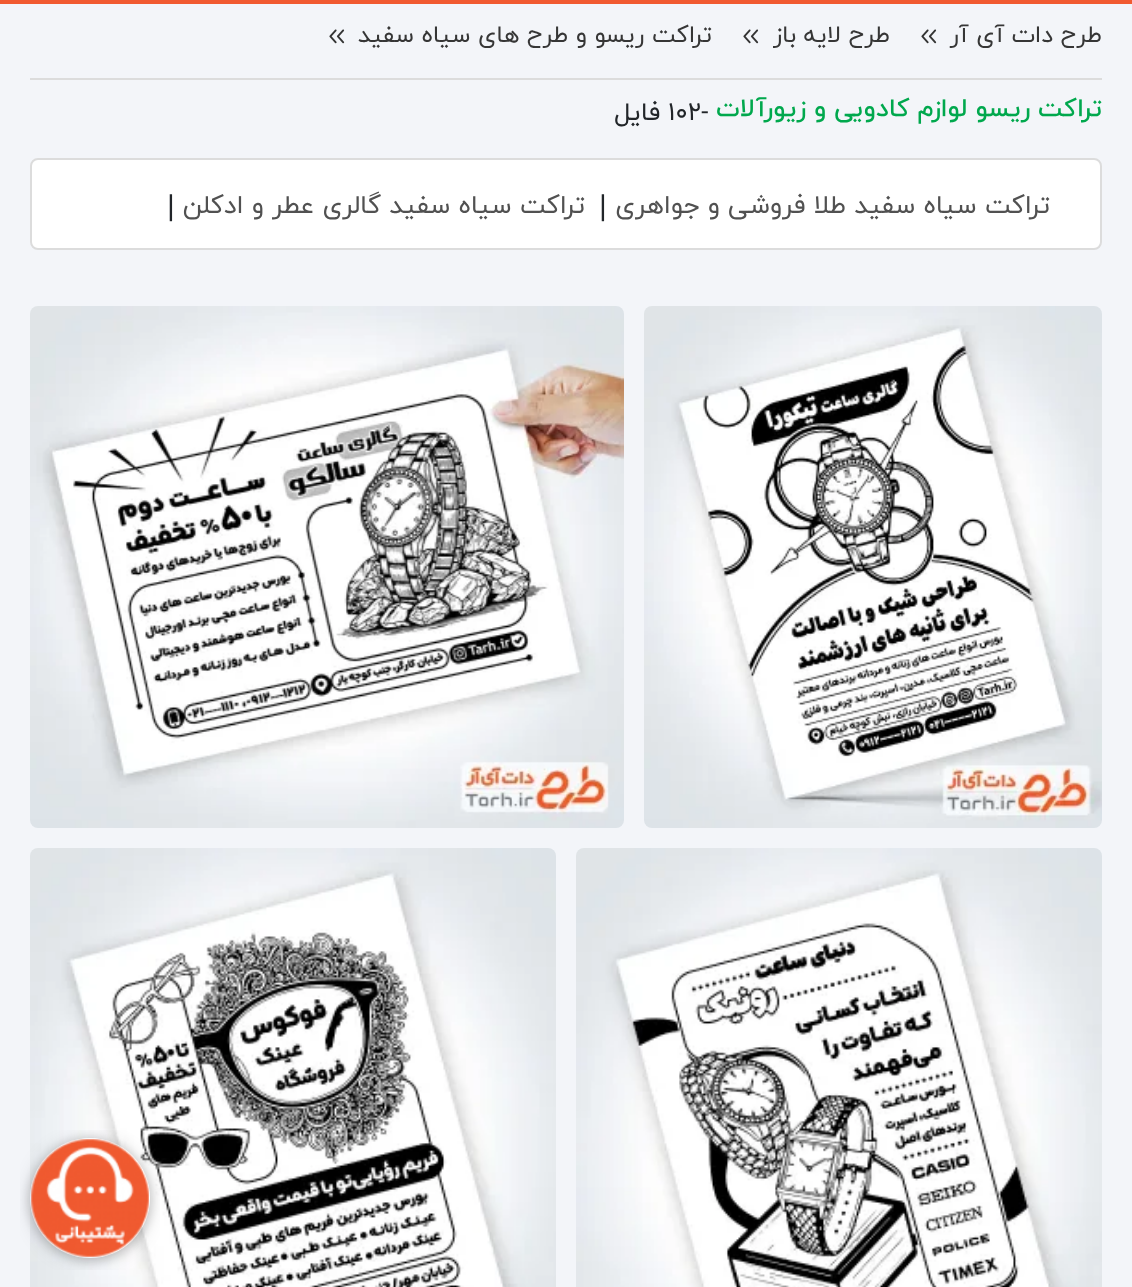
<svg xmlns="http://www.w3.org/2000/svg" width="1132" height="1287">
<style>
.a{font:24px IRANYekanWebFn;direction:rtl;fill:#363636}
.b{font:500 25.6px IRANYekanWebFn;direction:rtl;fill:#00a84d}
.c{font:25.6px IRANYekanWebFn;fill:#212529}
.d{font:25.6px IRANYekanWebFn;direction:rtl;fill:#212529}
.e{font:26px IRANYekanWebFn;direction:rtl;fill:#515151}
.f{font:32px IRANYekanWebFn;fill:#212529}
</style>
<rect width="100%" height="100%" fill="#f3f5f9"/>
<path fill="#f15a31" d="M0 0h1132v4H0z"/>
<image href="1.png" x="921" y="29" width="16" height="15"/>
<image href="1.png" x="743" y="29" width="16" height="15"/>
<image href="1.png" x="329" y="29" width="16" height="15"/>
<path fill="#dcdcdc" d="M30 78h1072v2H30z"/>
<rect fill="#fff" stroke="#dcdcdc" stroke-width="2" x="31" y="159" width="1070" height="90" rx="7"/>
<image href="2.png" x="644" y="306" width="458" height="522"/>
<image href="3.png" x="30" y="306" width="594" height="522"/>
<image href="4.png" x="576" y="848" width="526" height="439"/>
<image href="5.png" x="30" y="848" width="526" height="439"/>
<image href="6.png" x="20" y="1130" width="140" height="140"/>
<text class="a" x="1102" y="42">طرح دات آی آر</text>
<text class="a" x="890" y="42">طرح لایه باز</text>
<text class="a" x="712" y="42">تراکت ریسو و طرح های سیاه سفید</text>
<text class="b" x="1102" y="116">تراکت ریسو لوازم کادویی و زیورآلات</text>
<text class="c" x="668" y="120">102-</text>
<text class="d" x="660" y="120">فایل</text>
<text class="e" x="1050" y="213">تراکت سیاه سفید طلا فروشی و جواهری</text>
<text class="f" x="599" y="217">|</text>
<text class="e" x="585" y="213">تراکت سیاه سفید گالری عطر و ادکلن</text>
<text class="f" x="167" y="217">|</text>
</svg>
